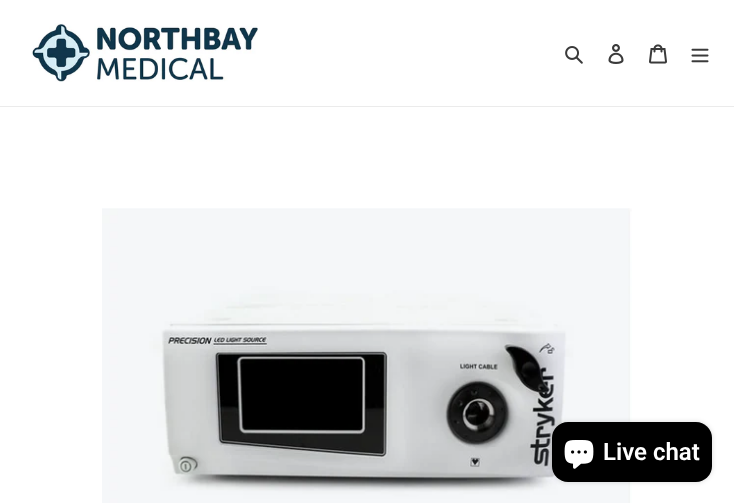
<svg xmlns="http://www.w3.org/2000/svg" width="734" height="503">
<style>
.a{font:600 24px Roboto;fill:#fff}
</style>
<rect width="100%" height="100%" fill="#fff"/>
<path fill="#ebebeb" d="M0 106h734v1H0z"/>
<image href="1.png" x="31" y="23" width="227" height="59"/>
<image href="2.png" x="565" y="46" width="18" height="18"/>
<image href="3.png" x="608" y="44" width="16" height="20"/>
<image href="4.png" x="649" y="44" width="18" height="20"/>
<image href="5.png" x="691" y="48" width="18" height="15"/>
<image href="6.png" x="102" y="208" width="530" height="295"/>
<rect fill="#00000026" filter="blur(2.5px)" x="552" y="422" width="160" height="60" rx="16"/>
<rect fill="#000" x="552" y="422" width="160" height="60" rx="16"/>
<image href="7.png" x="564" y="440" width="30" height="29"/>
<text class="a" x="603" y="460">Live chat</text>
</svg>
